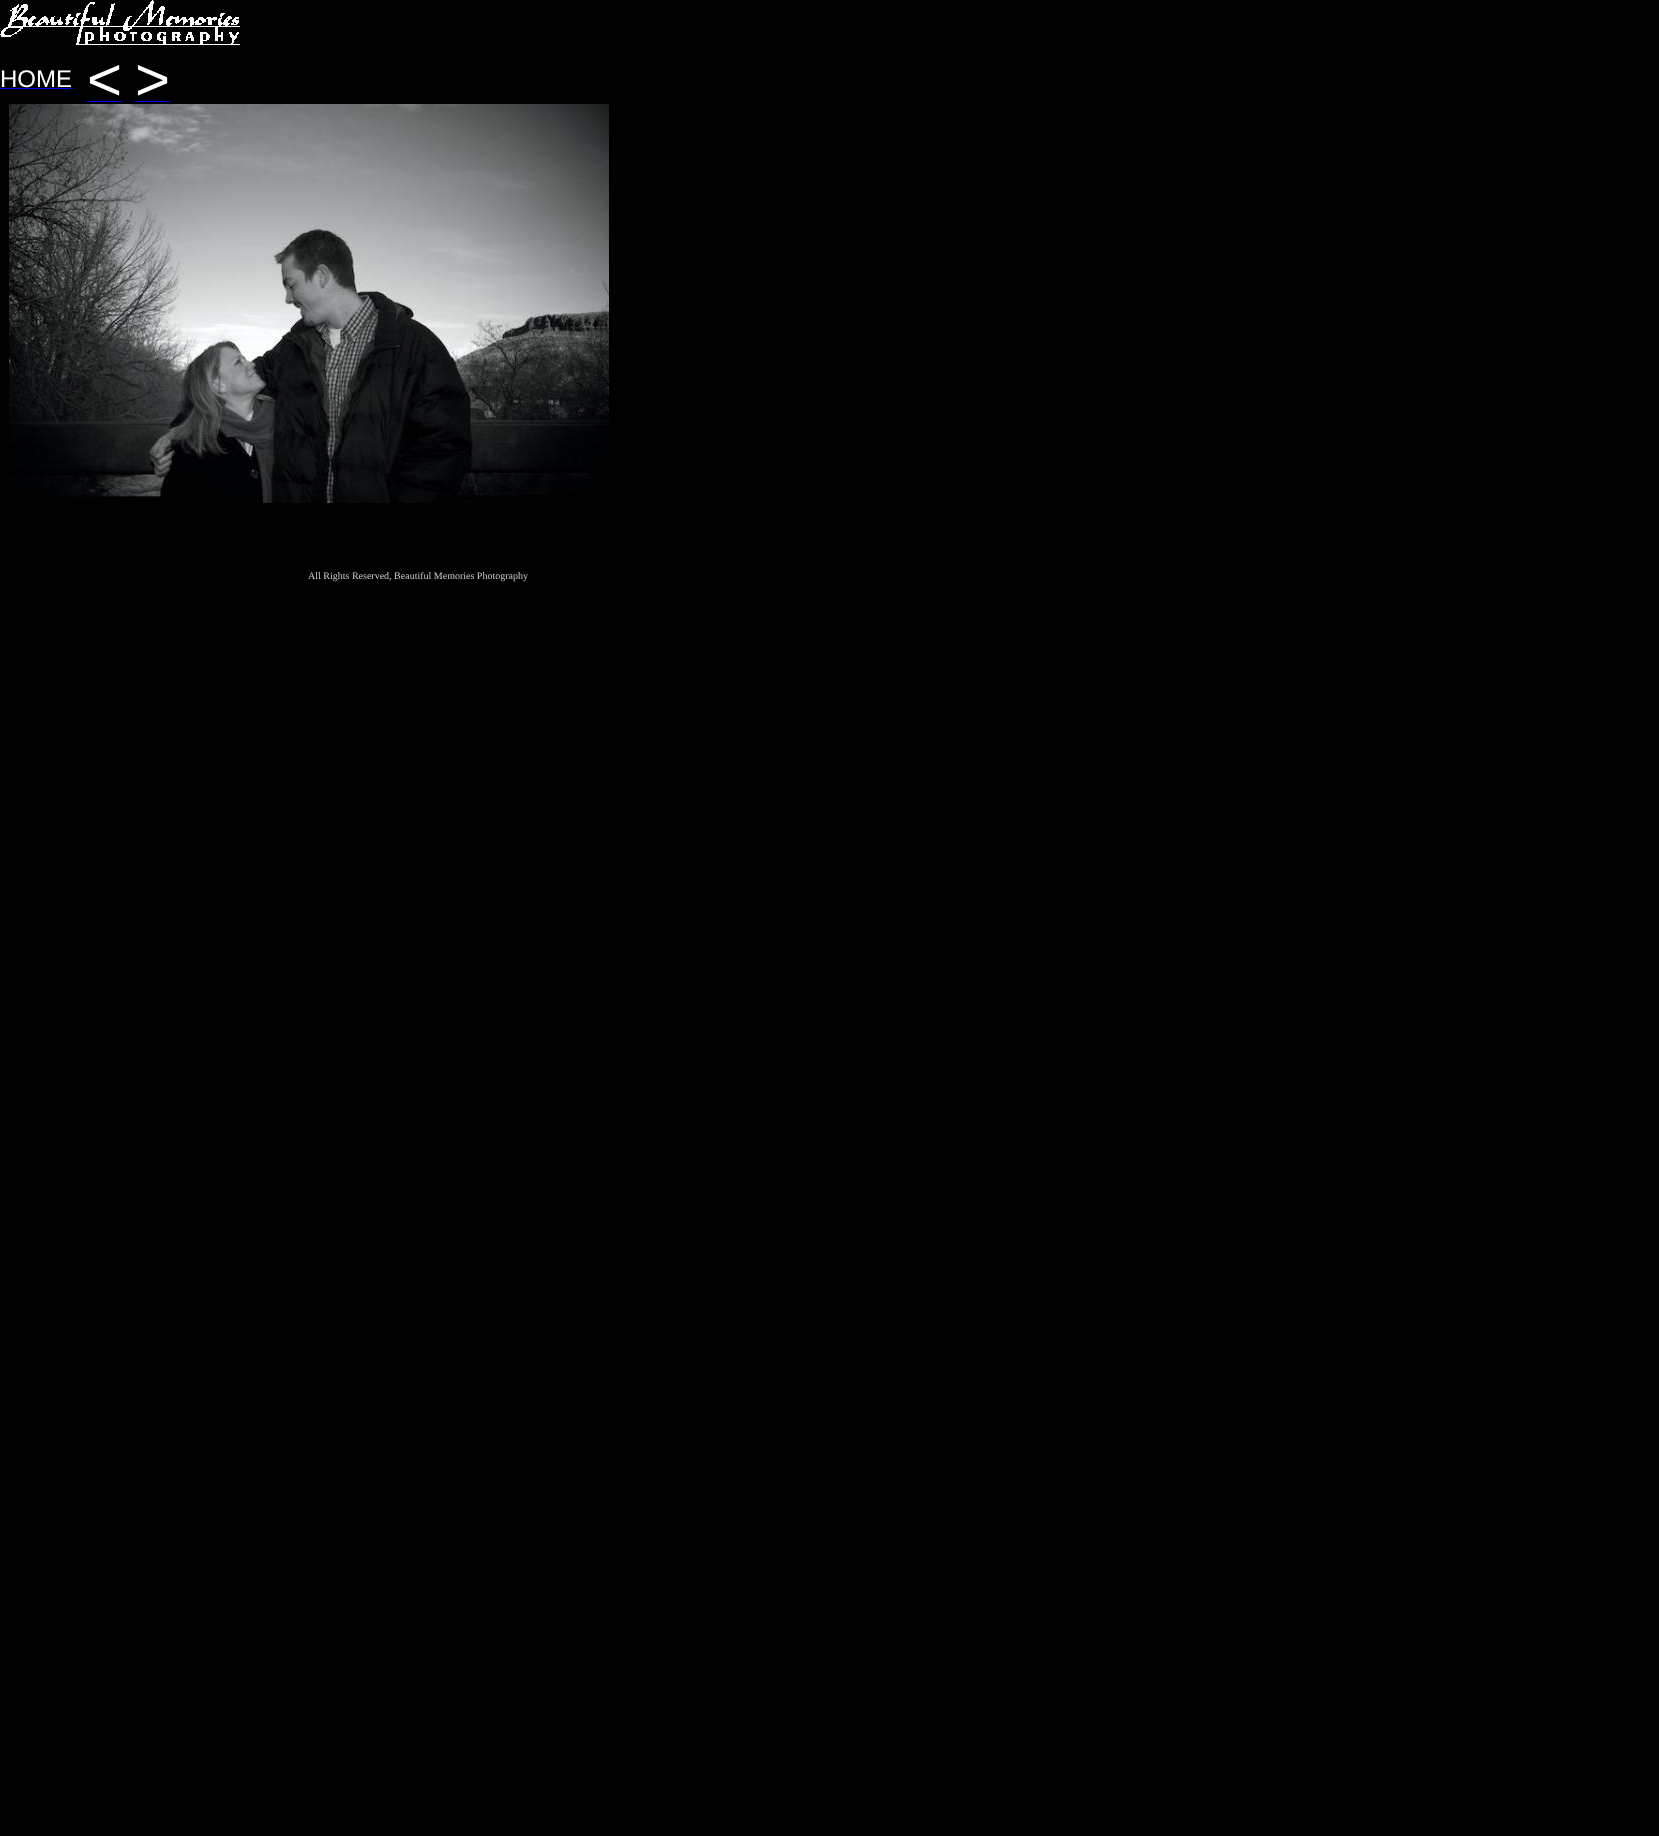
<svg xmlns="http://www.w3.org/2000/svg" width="1659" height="1836">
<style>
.a{font:24px Liberation Sans;fill:#fff}
.b{font:60px Liberation Sans;fill:#fff}
.c{font:10px Liberation Serif;fill:#ccc}
</style>
<rect width="100%" height="100%" fill="#000"/>
<image href="1.png" x="0" y="0" width="240" height="45"/>
<path fill="#00f" d="M0 88h72v1H0z"/>
<path fill="#00f" d="M87 101h35v1H87z"/>
<path fill="#00f" d="M135 101h35v1H135z"/>
<image href="2.png" x="9" y="104" width="600" height="399"/>
<text class="a" x="0" y="87">HOME</text>
<text class="b" x="87" y="100">&lt;</text>
<text class="b" x="135" y="100">&gt;</text>
<text class="c" x="308" y="579">All Rights Reserved, Beautiful Memories Photography</text>
</svg>
